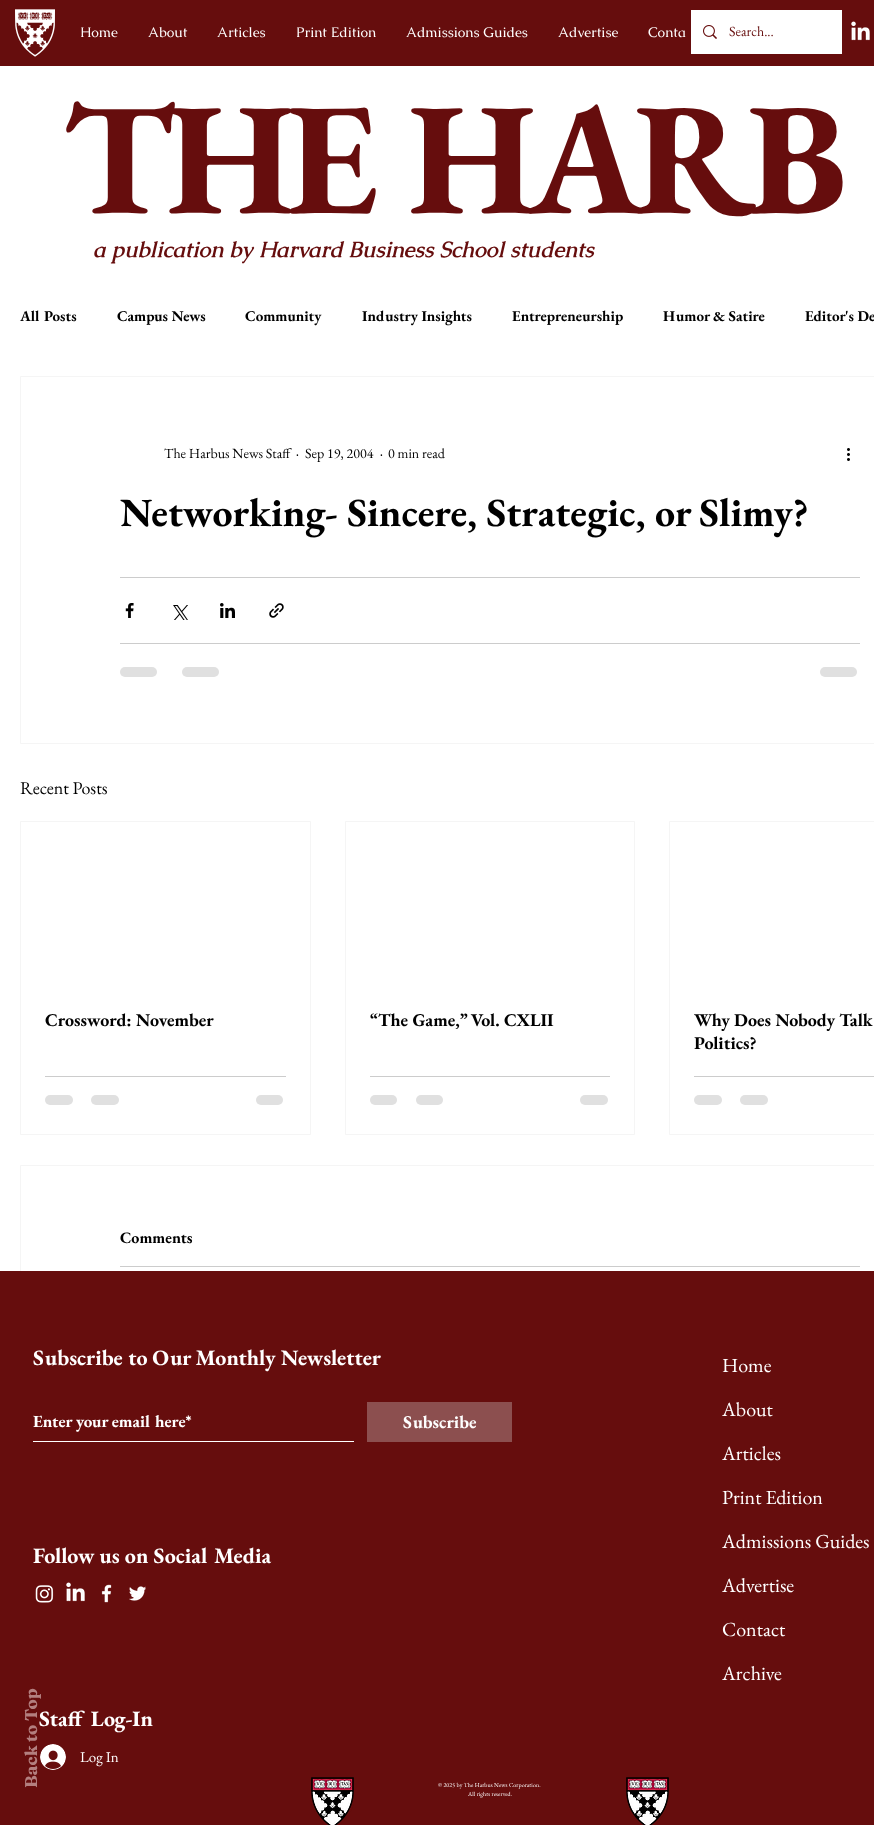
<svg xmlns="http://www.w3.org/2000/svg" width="874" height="1825">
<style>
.a{font:14px Caudex;fill:#fff}
.b{font:14px EB Garamond;fill:#660d0d}
.c{font:bold 160px EB Garamond;letter-spacing:-8px;fill:#660d0d}
.d{font:italic bold 22px Caudex;fill:#660d0d}
.e{font:bold 15px EB Garamond;fill:#000}
.f{font:14px EB Garamond;fill:#000}
.g{font:bold 40px EB Garamond;fill:#000}
.h{font:18px EB Garamond;fill:#000}
.i{font:bold 18px EB Garamond;fill:#000}
.j{font:bold 16px EB Garamond;fill:#000}
.k{font:bold 22px EB Garamond;fill:#fff}
.l{font:20px EB Garamond;fill:#fff}
.m{font:bold 17px EB Garamond;fill:#fff}
.n{font:bold 18px EB Garamond;fill:#fff}
.o{font:bold 17px Fraunces;fill:#b37f7f}
.p{font:15px EB Garamond;fill:#fff}
.q{font:6px EB Garamond;letter-spacing:0.1px;fill:#fff}
</style>
<rect width="100%" height="100%" fill="#fff"/>
<path fill="#660d0d" d="M0 0h874v66H0z"/>
<image href="1.png" x="15" y="9" width="40" height="48"/>
<path fill="#fff" d="M691 10h151v44H691z"/>
<image href="2.png" x="703" y="25" width="14" height="14"/>
<image href="3.png" x="851" y="21" width="19" height="20"/>
<path fill="none" stroke="#f5f5f5" d="M20.5 376.5h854v367H20.5z"/>
<image href="4.png" x="847" y="448" width="3" height="13"/>
<path fill="#ccc" d="M120 577h740v1H120z"/>
<image href="5.png" x="125" y="603" width="9" height="15"/>
<image href="6.png" x="173" y="605" width="15" height="15"/>
<image href="7.png" x="220" y="603" width="15" height="15"/>
<image href="8.png" x="269" y="603" width="15" height="15"/>
<path fill="#ccc" d="M120 643h740v1H120z"/>
<rect fill="#e0e0e0" x="120" y="667" width="37" height="10" rx="5"/>
<rect fill="#e0e0e0" x="182" y="667" width="37" height="10" rx="5"/>
<rect fill="#e0e0e0" x="820" y="667" width="37" height="10" rx="5"/>
<path fill="none" stroke="#f5f5f5" d="M20.5 821.5h290v313H20.5z"/>
<path fill="#ccc" d="M45 1076h241v1H45z"/>
<rect fill="#e0e0e0" x="45" y="1095" width="28" height="10" rx="5"/>
<rect fill="#e0e0e0" x="91" y="1095" width="28" height="10" rx="5"/>
<rect fill="#e0e0e0" x="256" y="1095" width="27" height="10" rx="5"/>
<path fill="none" stroke="#f5f5f5" d="M345.5 821.5h289v313H345.5z"/>
<path fill="#ccc" d="M370 1076h240v1H370z"/>
<rect fill="#e0e0e0" x="370" y="1095" width="27" height="10" rx="5"/>
<rect fill="#e0e0e0" x="416" y="1095" width="27" height="10" rx="5"/>
<rect fill="#e0e0e0" x="580" y="1095" width="28" height="10" rx="5"/>
<path fill="none" stroke="#f5f5f5" d="M669.5 821.5h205v313H669.5z"/>
<path fill="#ccc" d="M694 1076h180v1H694z"/>
<rect fill="#e0e0e0" x="694" y="1095" width="28" height="10" rx="5"/>
<rect fill="#e0e0e0" x="740" y="1095" width="28" height="10" rx="5"/>
<path fill="none" stroke="#f5f5f5" d="M20.5 1165.5h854v264H20.5z"/>
<path fill="#ccc" d="M120 1266h740v1H120z"/>
<path fill="#660d0d" d="M0 1271h874v554H0z"/>
<path fill="#fff" d="M33 1441h321v1H33z"/>
<path fill="#8c4f4f" d="M367 1402h145v40H367z"/>
<image href="9.png" x="35" y="1585" width="19" height="18"/>
<image href="3.png" x="66" y="1582" width="19" height="20"/>
<image href="10.png" x="101" y="1584" width="11" height="19"/>
<image href="11.png" x="129" y="1586" width="17" height="15"/>
<image href="12.png" x="40" y="1744" width="26" height="26"/>
<image href="13.png" x="311" y="1777" width="43" height="48"/>
<image href="13.png" x="626" y="1777" width="43" height="48"/>
<text class="a" x="80" y="37">Home</text>
<text class="a" x="148" y="37">About</text>
<text class="a" x="217" y="37">Articles</text>
<text class="a" x="296" y="37">Print Edition</text>
<text class="a" x="406" y="37">Admissions Guides</text>
<text class="a" x="558" y="37">Advertise</text>
<text class="a" x="648" y="37">Conta</text>
<text class="b" x="729" y="36">Search...</text>
<text class="c" x="63" y="213">THE HARB</text>
<text class="d" x="93" y="257">a publication by Harvard Business School students</text>
<text class="e" x="20" y="321">All Posts</text>
<text class="e" x="117" y="321">Campus News</text>
<text class="e" x="245" y="321">Community</text>
<text class="e" x="362" y="321">Industry Insights</text>
<text class="e" x="512" y="321">Entrepreneurship</text>
<text class="e" x="663" y="321">Humor &amp; Satire</text>
<text class="e" x="805" y="321">Editor's De</text>
<text class="f" x="164" y="458">The Harbus News Staff</text>
<text class="f" x="296" y="458">·</text>
<text class="f" x="305" y="458">Sep 19, 2004</text>
<text class="f" x="380" y="458">·</text>
<text class="f" x="388" y="458">0 min read</text>
<text class="g" x="120" y="526">Networking- Sincere, Strategic, or Slimy?</text>
<text class="h" x="20" y="794">Recent Posts</text>
<text class="i" x="45" y="1026">Crossword: November</text>
<text class="i" x="370" y="1026">“The Game,” Vol. CXLII</text>
<text class="i" x="694" y="1026">Why Does Nobody Talk</text>
<text class="i" x="694" y="1049">Politics?</text>
<text class="j" x="120" y="1243">Comments</text>
<text class="k" x="33" y="1365">Subscribe to Our Monthly Newsletter</text>
<text class="l" x="722" y="1372">Home</text>
<text class="l" x="722" y="1416">About</text>
<text class="l" x="722" y="1460">Articles</text>
<text class="l" x="722" y="1504">Print Edition</text>
<text class="l" x="722" y="1548">Admissions Guides</text>
<text class="l" x="722" y="1592">Advertise</text>
<text class="l" x="722" y="1636">Contact</text>
<text class="l" x="722" y="1680">Archive</text>
<text class="m" x="33" y="1427">Enter your email here*</text>
<text class="n" x="403" y="1428">Subscribe</text>
<text class="k" x="33" y="1563">Follow us on Social Media</text>
<text class="k" x="39" y="1726">Staff Log-In</text>
<text class="o" x="37" y="1788" transform="rotate(-90 37 1788)">Back to Top</text>
<text class="p" x="80" y="1762">Log In</text>
<text class="q" x="438" y="1787">© 2025 by The Harbus News Corporation.</text>
<text class="q" x="468" y="1796">All rights reserved.</text>
</svg>
